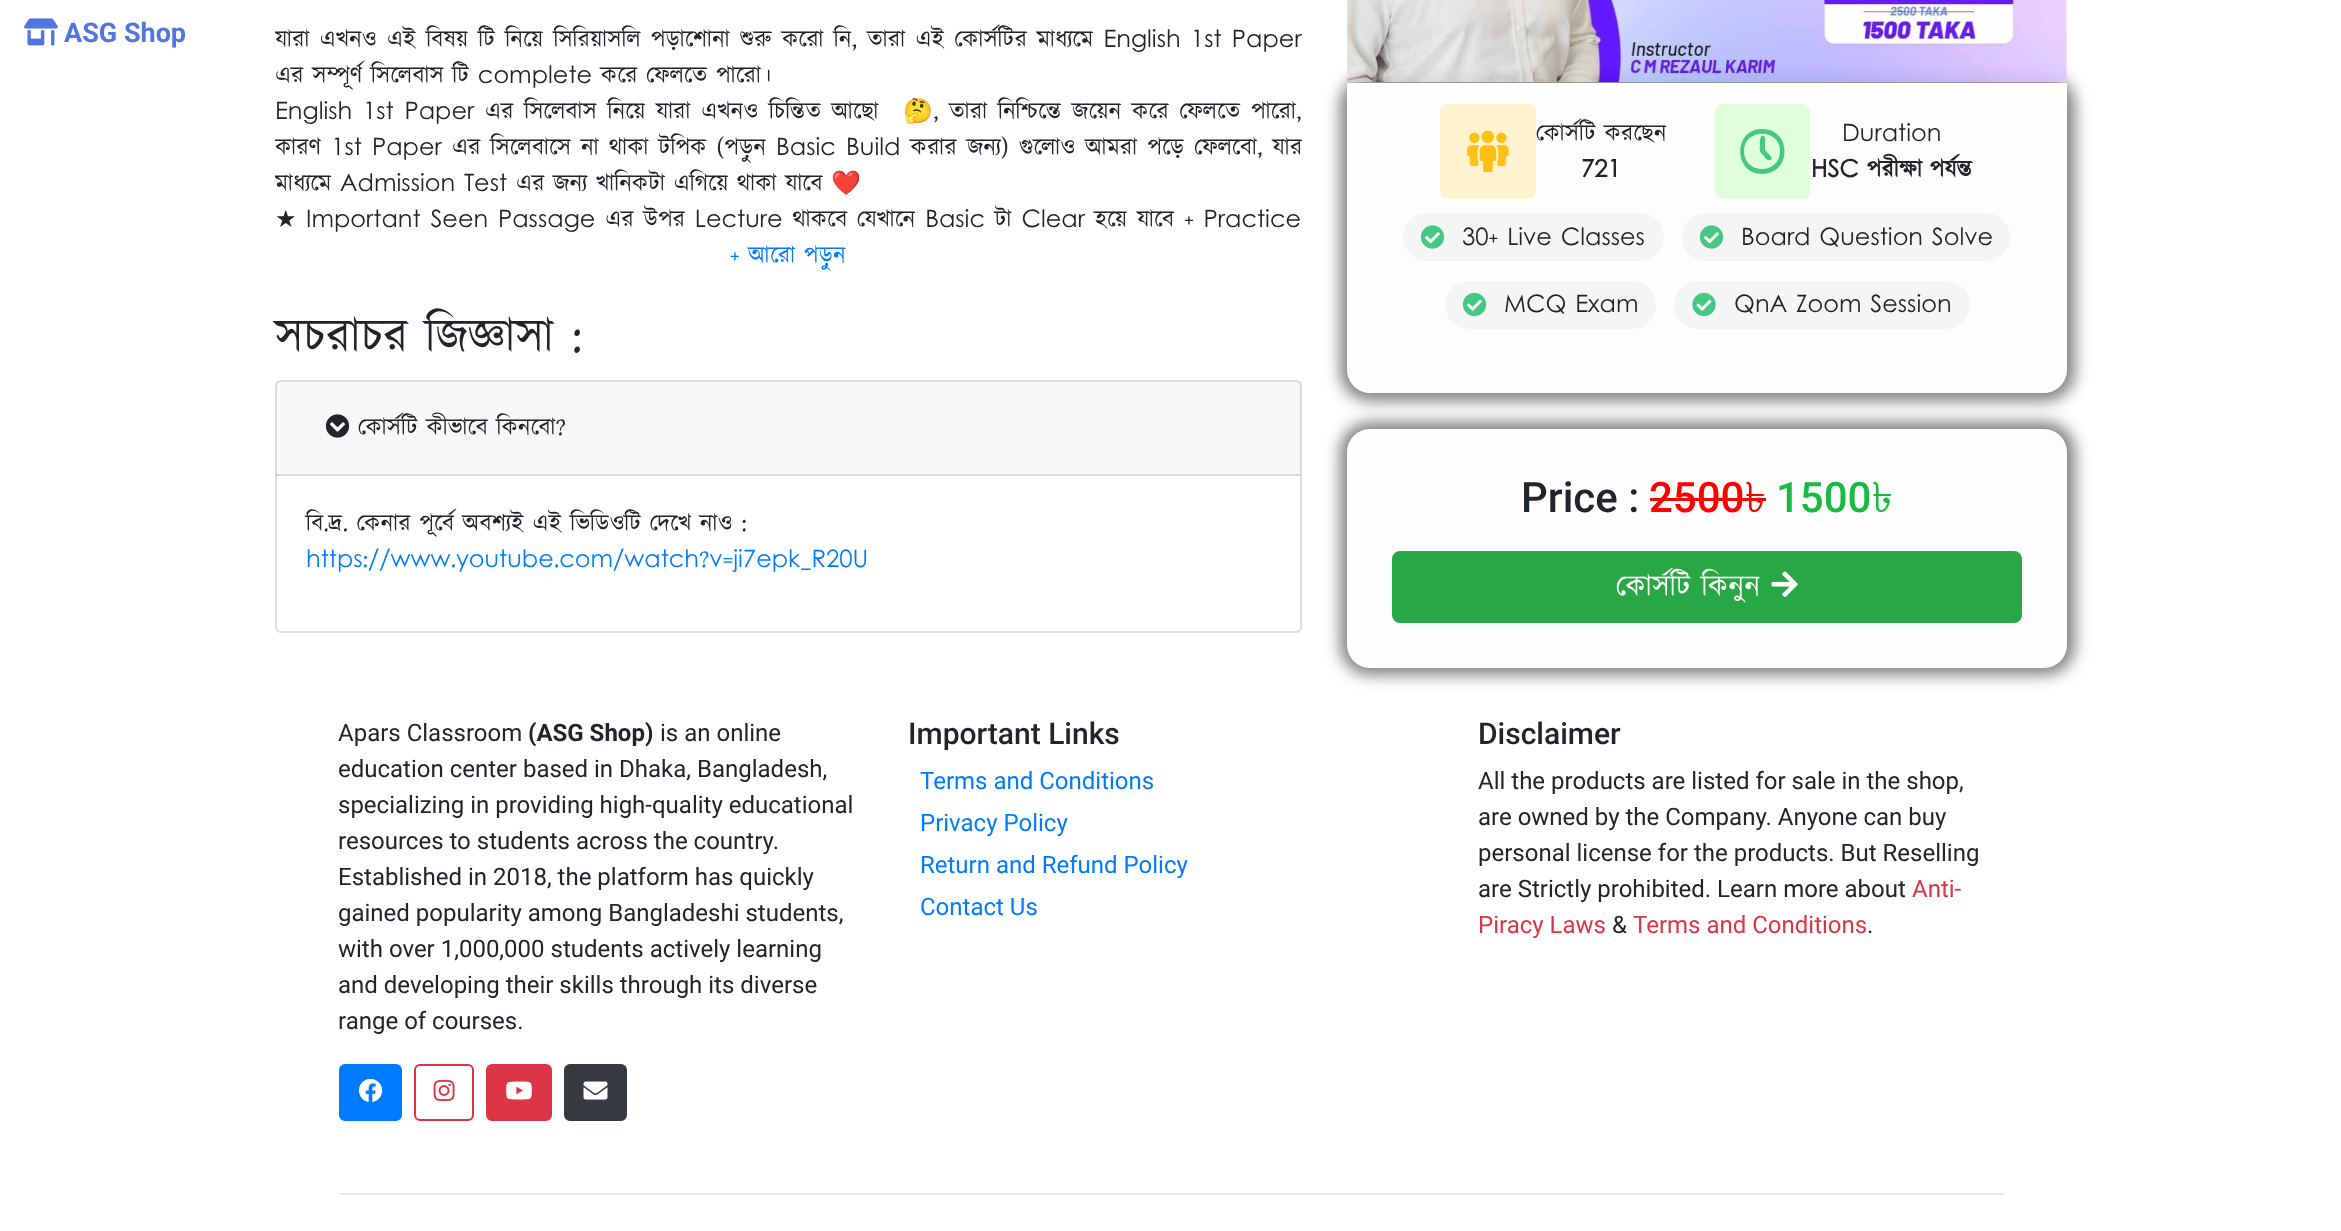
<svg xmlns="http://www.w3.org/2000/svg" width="2341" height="1231">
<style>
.a{font:bold 27px Roboto;fill:#5375e2}
.b{font:24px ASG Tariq;fill:#212529}
.c{font:24px Noto Color Emoji;fill:#212529}
.d{font:24px DejaVu Sans;fill:#212529}
.e{font:24px ASG Tariq;fill:#007bff}
.f{font:48px ASG Tariq;fill:#212529}
.g{font:bold 24px ASG Tariq;fill:#212529}
.h{font:500 42px Roboto;fill:#212529}
.i{font:500 42px Roboto;fill:#f00}
.j{font:42px Lohit Bengali;fill:#f00}
.k{font:500 42px Roboto;fill:#1ab942}
.l{font:42px Lohit Bengali;fill:#1ab942}
.m{font:30px ASG Tariq;fill:#fff}
.n{font:24px Roboto;fill:#212529}
.o{font:bold 24px Roboto;fill:#212529}
.p{font:500 30px Roboto;fill:#212529}
.q{font:24px Roboto;fill:#007bff}
.r{font:24px Roboto;fill:#dc3545}
</style>
<defs>
<clipPath id="clip1"><path d="M275 0h1027v237H275z"/></clipPath>
</defs>
<rect width="100%" height="100%" fill="#fff"/>
<image href="1.png" x="24" y="18" width="34" height="28"/>
<rect fill="none" stroke="#dfdfdf" stroke-width="2" x="276" y="381" width="1025" height="251" rx="5"/>
<path fill="#00000008" d="M276 381h1025v95H276z"/>
<path fill="#0000001f" d="M276 474h1025v2H276z"/>
<image href="2.png" x="325" y="414" width="25" height="24"/>
<rect fill="#808080" filter="blur(7.5px)" x="1340" y="75" width="735" height="326" rx="30"/>
<image href="3.png" x="1347" y="0" width="720" height="83"/>
<path fill="#fdfdfd" d="M1347 83h720v287c0 12.5-10.5 23-23 23h-674c-12.5 0-23-10.5-23-23z"/>
<image href="4.png" x="1440" y="104" width="96" height="95"/>
<rect fill="#deffd9" x="1715" y="104" width="95" height="95" rx="8"/>
<path fill="#45c881" fill-rule="evenodd" d="M1744 151c0-23 36-23 36 0c0 24-36 24-36 0zm18-22c-29 0-29 45 0 45c30 0 30-45 0-45zm3 9l-1-2c-4-3-4 6-4 6c0 10-2 8 4 14c1 2 3 5 6 4c6-1-5-9-5-10z"/>
<rect fill="#f5f5f5" x="1403" y="213" width="261" height="48" rx="24"/>
<image href="5.png" x="1420" y="225" width="25" height="24"/>
<rect fill="#f5f5f5" x="1682" y="213" width="328" height="48" rx="24"/>
<image href="5.png" x="1699" y="225" width="25" height="24"/>
<rect fill="#f5f5f5" x="1445" y="281" width="211" height="48" rx="24"/>
<image href="6.png" x="1462" y="292" width="25" height="25"/>
<rect fill="#f5f5f5" x="1674" y="281" width="296" height="48" rx="24"/>
<image href="7.png" x="1692" y="292" width="24" height="25"/>
<rect fill="#808080" filter="blur(7.5px)" x="1340" y="422" width="735" height="253" rx="30"/>
<rect fill="#fdfdfd" x="1347" y="429" width="720" height="239" rx="23"/>
<path fill="#f00" d="M1650 498h95v3H1650z"/>
<path fill="#f00" d="M1745 498h21v3H1745z"/>
<rect fill="#28a745" stroke="#28a745" stroke-width="2" x="1393" y="552" width="628" height="70" rx="7"/>
<image href="8.png" x="1771" y="571" width="27" height="26"/>
<rect fill="#007bff" stroke="#007bff" stroke-width="2" x="340" y="1065" width="61" height="55" rx="5"/>
<image href="9.png" x="358" y="1078" width="25" height="24"/>
<rect fill="none" stroke="#dc3545" stroke-width="2" x="415" y="1065" width="58" height="55" rx="5"/>
<image href="10.png" x="433" y="1080" width="22" height="21"/>
<rect fill="#dc3545" stroke="#dc3545" stroke-width="2" x="487" y="1065" width="64" height="55" rx="5"/>
<image href="11.png" x="506" y="1081" width="26" height="19"/>
<rect fill="#343a40" stroke="#343a40" stroke-width="2" x="565" y="1065" width="61" height="55" rx="5"/>
<image href="12.png" x="583" y="1081" width="25" height="19"/>
<path fill="#e6e6e6" d="M339 1193h1665v2H339z"/>
<text class="a" x="64" y="42">ASG Shop</text>
<g clip-path="url(#clip1)">
<text class="b" x="275" y="47" word-spacing="1.5">যারা এখনও এই বিষয় টি নিয়ে সিরিয়াসলি পড়াশোনা শুরু করো নি, তারা এই কোর্সটির মাধ্যমে English 1st Paper</text>
</g>
<text class="b" x="275" y="83">এর সম্পূর্ণ সিলেবাস টি complete করে ফেলতে পারো।</text>
<text class="b" x="275" y="119" word-spacing="2">English 1st Paper এর সিলেবাস নিয়ে যারা এখনও চিন্তিত আছো</text>
<text class="c" x="903" y="119">🤔</text>
<text class="b" x="933" y="119" word-spacing="2">, তারা নিশ্চিন্তে জয়েন করে ফেলতে পারো,</text>
<g clip-path="url(#clip1)">
<text class="b" x="275" y="155" word-spacing="1.4">কারণ 1st Paper এর সিলেবাসে না থাকা টপিক (পড়ুন Basic Build করার জন্য) গুলোও আমরা পড়ে ফেলবো, যার</text>
<text class="b" x="275" y="191">মাধ্যমে Admission Test এর জন্য খানিকটা এগিয়ে থাকা যাবে</text>
</g>
<text class="c" x="831" y="191">❤️</text>
<text class="d" x="275" y="227">★</text>
<text class="b" x="306" y="227" word-spacing="1.1">Important Seen Passage এর উপর Lecture থাকবে যেখানে Basic টা Clear হয়ে যাবে + Practice</text>
<text class="e" x="730" y="263">+ আরো পড়ুন</text>
<text class="f" x="275" y="352">সচরাচর জিজ্ঞাসা :</text>
<text class="b" x="358" y="435">কোর্সটি কীভাবে কিনবো?</text>
<text class="b" x="306" y="531">বি.দ্র. কেনার পূর্বে অবশ্যই এই ভিডিওটি দেখে নাও :</text>
<text class="e" x="306" y="567">https://www.youtube.com/watch?v=ji7epk_R20U</text>
<text class="b" x="1536" y="141">কোর্সটি করছেন</text>
<text class="g" x="1581" y="177">721</text>
<text class="b" x="1842" y="141">Duration</text>
<text class="g" x="1811" y="177" word-spacing="-1">HSC পরীক্ষা পর্যন্ত</text>
<text class="b" x="1462" y="245">30+ Live Classes</text>
<text class="b" x="1741" y="245">Board Question Solve</text>
<text class="b" x="1504" y="312">MCQ Exam</text>
<text class="b" x="1734" y="312">QnA Zoom Session</text>
<text class="h" x="1521" y="512">Price :</text>
<text class="i" x="1649" y="512">2500</text>
<text class="j" x="1745" y="512">৳</text>
<text class="k" x="1776" y="512">1500</text>
<text class="l" x="1872" y="512">৳</text>
<text class="m" x="1616" y="596">কোর্সটি কিনুন</text>
<text class="n" x="338" y="741">Apars Classroom</text>
<text class="o" x="528" y="741">(ASG Shop)</text>
<text class="n" x="660" y="741">is an online</text>
<text class="n" x="338" y="777">education center based in Dhaka, Bangladesh,</text>
<text class="n" x="338" y="813">specializing in providing high-quality educational</text>
<text class="n" x="338" y="849">resources to students across the country.</text>
<text class="n" x="338" y="885">Established in 2018, the platform has quickly</text>
<text class="n" x="338" y="921">gained popularity among Bangladeshi students,</text>
<text class="n" x="338" y="957">with over 1,000,000 students actively learning</text>
<text class="n" x="338" y="993">and developing their skills through its diverse</text>
<text class="n" x="338" y="1029">range of courses.</text>
<text class="p" x="908" y="744">Important Links</text>
<text class="q" x="920" y="789">Terms and Conditions</text>
<text class="q" x="920" y="831">Privacy Policy</text>
<text class="q" x="920" y="873">Return and Refund Policy</text>
<text class="q" x="920" y="915">Contact Us</text>
<text class="p" x="1478" y="744">Disclaimer</text>
<text class="n" x="1478" y="789">All the products are listed for sale in the shop,</text>
<text class="n" x="1478" y="825">are owned by the Company. Anyone can buy</text>
<text class="n" x="1478" y="861">personal license for the products. But Reselling</text>
<text class="n" x="1478" y="897">are Strictly prohibited. Learn more about</text>
<text class="r" x="1912" y="897">Anti-</text>
<text class="r" x="1478" y="933">Piracy Laws</text>
<text class="n" x="1612" y="933">&amp;</text>
<text class="r" x="1633" y="933">Terms and Conditions</text>
<text class="n" x="1867" y="933">.</text>
</svg>
